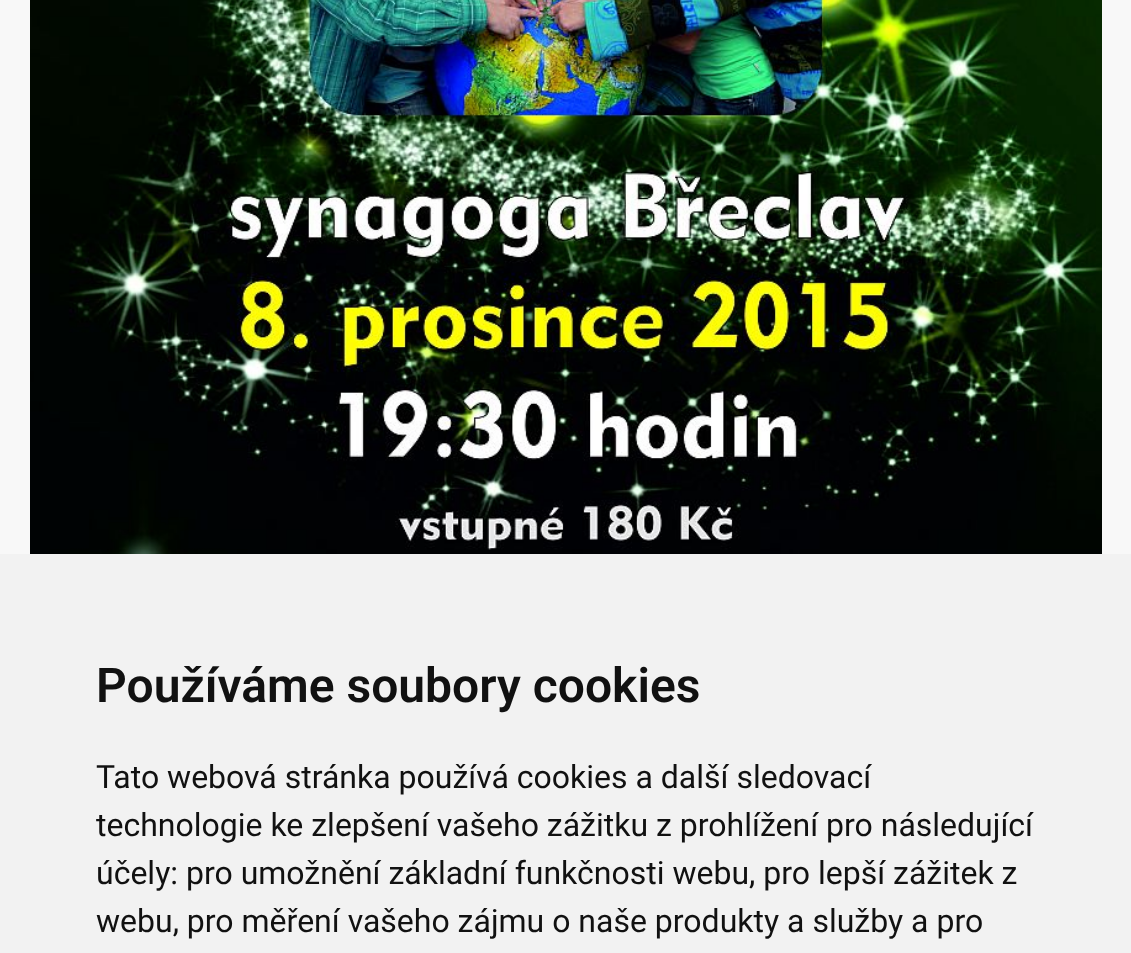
<svg xmlns="http://www.w3.org/2000/svg" width="1131" height="953">
<style>
.a{font:600 48px Roboto;fill:#111}
.b{font:32px Roboto;fill:#111}
</style>
<rect width="100%" height="100%" fill="#f8f8f8"/>
<image href="1.png" x="30" y="0" width="1072" height="554"/>
<path fill="#f2f2f2" d="M0 554h1131v399H0z"/>
<text class="a" x="96" y="702">Používáme soubory cookies</text>
<text class="b" x="96" y="788">Tato webová stránka používá cookies a další sledovací</text>
<text class="b" x="96" y="836">technologie ke zlepšení vašeho zážitku z prohlížení pro následující</text>
<text class="b" x="96" y="884">účely: pro umožnění základní funkčnosti webu, pro lepší zážitek z</text>
<text class="b" x="96" y="932">webu, pro měření vašeho zájmu o naše produkty a služby a pro</text>
</svg>
